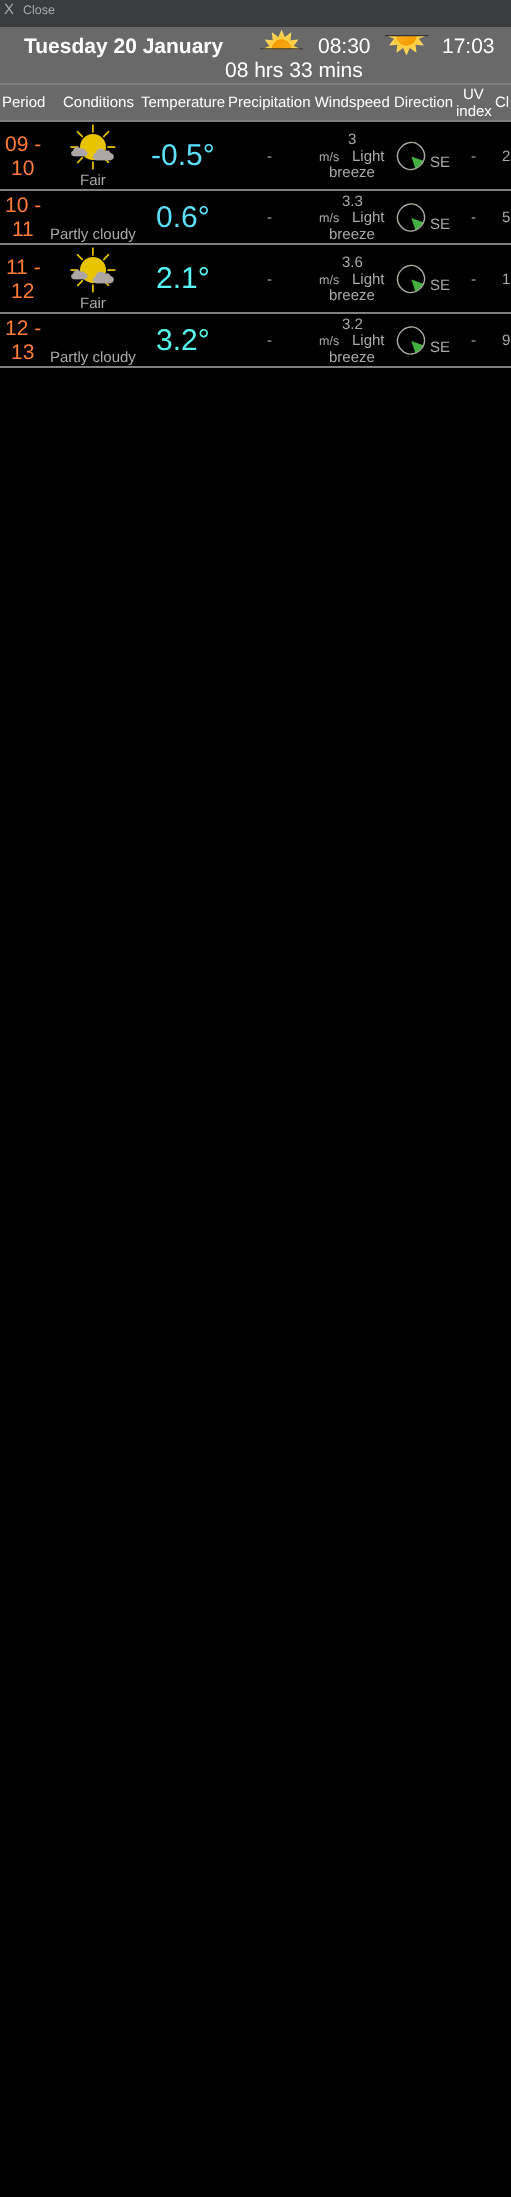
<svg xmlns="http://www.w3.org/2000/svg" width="511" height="2197">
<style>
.a{font:15px Liberation Sans;fill:#aaa}
.b{font:12.5px Liberation Sans;fill:#aaa}
.c{font:bold 21px Liberation Sans;fill:#fff}
.d{font:21px Liberation Sans;fill:#fff}
.e{font:15px Liberation Sans;fill:#fff}
.f{font:21px Liberation Sans;fill:#ff7c39}
.g{font:30px Liberation Sans;fill:#5ce0fa}
.h{font:30px Liberation Sans;fill:#57faf9}
.i{font:30px Liberation Sans;fill:#55faeb}
</style>
<rect width="100%" height="100%" fill="#000"/>
<path fill="#393d40" d="M0 0h511v27H0z"/>
<path fill="#696969" d="M0 27h511v56H0z"/>
<path fill="#808080" d="M0 83h511v2H0z"/>
<image href="1.png" x="260" y="30" width="43" height="20"/>
<image href="2.png" x="384" y="35" width="45" height="21"/>
<path fill="#696969" d="M0 85h511v35H0z"/>
<path fill="#808080" d="M0 120h511v2H0z"/>
<path fill="#808080" d="M0 189h511v2H0z"/>
<path fill="#43b040" d="M411.5 157v-.5l12.5 4.5l-8 8h-.5z"/>
<path fill="none" stroke="#abaea3" stroke-width="1.4" d="M401.5 165.5c-12.5-12.5 6.5-31.5 19-19c12.5 12.5-6.5 31.5-19 19z"/>
<image href="3.png" x="70" y="124" width="46" height="46"/>
<path fill="#808080" d="M0 243h511v2H0z"/>
<path fill="#43b040" d="M411.5 218.5v-.5l12.5 4.5l-8 8h-.5z"/>
<path fill="none" stroke="#abaea3" stroke-width="1.4" d="M401.5 227c-12.5-12.5 6.5-31.5 19-19c12.5 12.5-6.5 31.5-19 19z"/>
<path fill="#808080" d="M0 312h511v2H0z"/>
<path fill="#43b040" d="M411.5 280v-.5l12.5 4.5l-8 8h-.5z"/>
<path fill="none" stroke="#abaea3" stroke-width="1.4" d="M401.5 288.5c-12.5-12.5 6.5-31.5 19-19c12.5 12.5-6.5 31.5-19 19z"/>
<image href="3.png" x="70" y="247" width="46" height="46"/>
<path fill="#808080" d="M0 366h511v2H0z"/>
<path fill="#43b040" d="M411.5 341.5v-.5l12.5 4.5l-8 8h-.5z"/>
<path fill="none" stroke="#abaea3" stroke-width="1.4" d="M401.5 350c-12.5-12.5 6.5-31.5 19-19c12.5 12.5-6.5 31.5-19 19z"/>
<text class="a" x="4" y="14">X</text>
<text class="b" x="23" y="14">Close</text>
<text class="c" x="24" y="53">Tuesday 20 January</text>
<text class="d" x="318" y="53">08:30</text>
<text class="d" x="442" y="53">17:03</text>
<text class="d" x="225" y="77">08 hrs 33 mins</text>
<text class="e" x="2" y="107">Period</text>
<text class="e" x="63" y="107">Conditions</text>
<text class="e" x="141" y="107">Temperature</text>
<text class="e" x="228" y="107">Precipitation Windspeed Direction</text>
<text class="e" x="463" y="99">UV</text>
<text class="e" x="456" y="116">index</text>
<text class="e" x="495" y="107">Cl</text>
<text class="f" x="5" y="151">09 -</text>
<text class="f" x="11" y="175">10</text>
<text class="g" x="151" y="165">-0.5°</text>
<text class="a" x="267" y="161">-</text>
<text class="a" x="348" y="144">3</text>
<text class="b" x="319" y="161">m/s</text>
<text class="a" x="352" y="161">Light</text>
<text class="a" x="329" y="177">breeze</text>
<text class="a" x="430" y="167">SE</text>
<text class="a" x="471" y="161">-</text>
<text class="a" x="502" y="161">2</text>
<text class="a" x="80" y="185">Fair</text>
<text class="f" x="5" y="212">10 -</text>
<text class="f" x="12" y="236">11</text>
<text class="g" x="156" y="227">0.6°</text>
<text class="a" x="267" y="222">-</text>
<text class="a" x="342" y="206">3.3</text>
<text class="b" x="319" y="222">m/s</text>
<text class="a" x="352" y="222">Light</text>
<text class="a" x="329" y="239">breeze</text>
<text class="a" x="430" y="229">SE</text>
<text class="a" x="471" y="222">-</text>
<text class="a" x="502" y="222">5</text>
<text class="a" x="50" y="239">Partly cloudy</text>
<text class="f" x="6" y="274">11 -</text>
<text class="f" x="11" y="298">12</text>
<text class="h" x="156" y="288">2.1°</text>
<text class="a" x="267" y="284">-</text>
<text class="a" x="342" y="267">3.6</text>
<text class="b" x="319" y="284">m/s</text>
<text class="a" x="352" y="284">Light</text>
<text class="a" x="329" y="300">breeze</text>
<text class="a" x="430" y="290">SE</text>
<text class="a" x="471" y="284">-</text>
<text class="a" x="502" y="284">1</text>
<text class="a" x="80" y="308">Fair</text>
<text class="f" x="5" y="335">12 -</text>
<text class="f" x="11" y="359">13</text>
<text class="i" x="156" y="350">3.2°</text>
<text class="a" x="267" y="345">-</text>
<text class="a" x="342" y="329">3.2</text>
<text class="b" x="319" y="345">m/s</text>
<text class="a" x="352" y="345">Light</text>
<text class="a" x="329" y="362">breeze</text>
<text class="a" x="430" y="352">SE</text>
<text class="a" x="471" y="345">-</text>
<text class="a" x="502" y="345">9</text>
<text class="a" x="50" y="362">Partly cloudy</text>
</svg>
